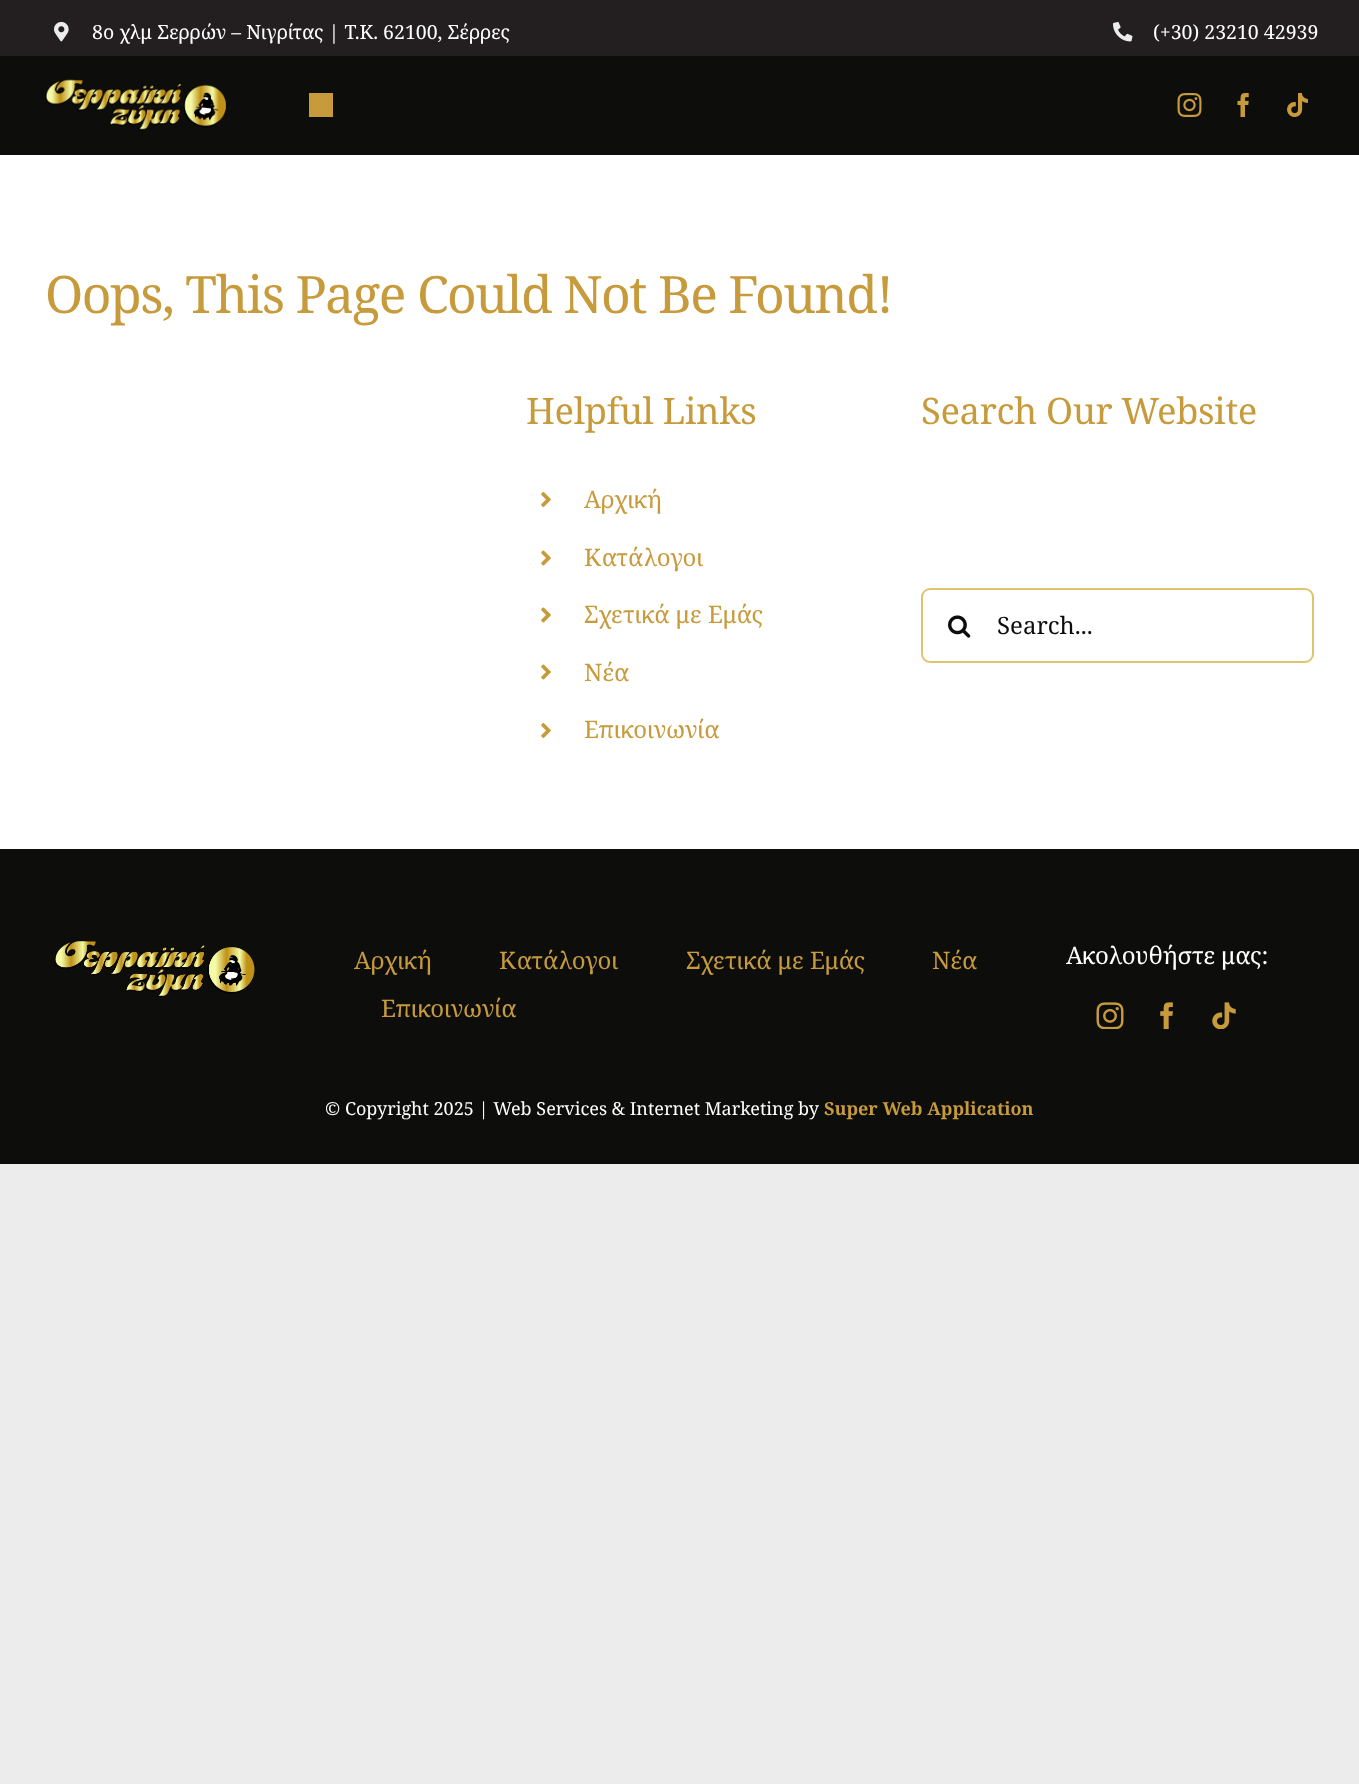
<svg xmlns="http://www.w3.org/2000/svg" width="1359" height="1784">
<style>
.a{font:19.5px Noto Serif;fill:#fff}
.b{font:51.6px Noto Serif;letter-spacing:-1.5px;fill:#c79b3c}
.c{font:36.5px Noto Serif;letter-spacing:-0.4px;fill:#c79b3c}
.d{font:24px Noto Serif;fill:#c79b3c}
.e{font:24px Noto Serif;fill:#0d0d0c}
.f{font:24px Noto Serif;fill:#fff}
.g{font:18px Noto Serif;fill:#fff}
.h{font:bold 18px Noto Serif;fill:#c79b3c}
</style>
<rect width="100%" height="100%" fill="#ececed"/>
<path fill="#fff" d="M0 155h1359v694H0z"/>
<path fill="#231f20" d="M0 0h1359v56H0z"/>
<image href="1.png" x="54" y="21" width="15" height="21"/>
<image href="2.png" x="1113" y="22" width="20" height="20"/>
<path fill="#0d0d0c" d="M0 56h1359v99H0z"/>
<image href="3.png" x="45" y="79" width="182" height="52"/>
<path fill="#c79b3c" d="M309 93h24v24H309z"/>
<image href="4.png" x="1177" y="93" width="25" height="24"/>
<image href="5.png" x="1237" y="93" width="12" height="24"/>
<image href="6.png" x="1287" y="93" width="21" height="24"/>
<image href="7.png" x="541" y="492" width="10" height="15"/>
<image href="8.png" x="541" y="550" width="10" height="16"/>
<image href="8.png" x="541" y="607" width="10" height="16"/>
<image href="8.png" x="541" y="664" width="10" height="16"/>
<image href="7.png" x="541" y="723" width="10" height="15"/>
<rect fill="none" stroke="#dfc46e" stroke-width="2" x="922" y="589" width="391" height="73" rx="8"/>
<image href="9.png" x="948" y="615" width="23" height="23"/>
<path fill="#0d0d0c" d="M0 849h1359v315H0z"/>
<image href="10.png" x="54" y="941" width="201" height="56"/>
<image href="11.png" x="1096" y="1002" width="28" height="27"/>
<image href="12.png" x="1160" y="1002" width="13" height="27"/>
<image href="13.png" x="1212" y="1002" width="24" height="27"/>
<text class="a" x="92" y="39">8ο χλμ Σερρών – Νιγρίτας | T.K. 62100, Σέρρες</text>
<text class="a" x="1153" y="39">(+30) 23210 42939</text>
<text class="b" x="45" y="313">Oops, This Page Could Not Be Found!</text>
<text class="c" x="526" y="424">Helpful Links</text>
<text class="d" x="584" y="508">Αρχική</text>
<text class="d" x="584" y="566">Κατάλογοι</text>
<text class="d" x="584" y="623">Σχετικά με Εμάς</text>
<text class="d" x="584" y="681">Νέα</text>
<text class="d" x="584" y="738">Επικοινωνία</text>
<text class="c" x="921" y="424">Search Our Website</text>
<text class="e" x="997" y="634">Search...</text>
<text class="d" x="354" y="969">Αρχική</text>
<text class="d" x="499" y="969">Κατάλογοι</text>
<text class="d" x="686" y="969">Σχετικά με Εμάς</text>
<text class="d" x="932" y="969">Νέα</text>
<text class="d" x="381" y="1017">Επικοινωνία</text>
<text class="f" x="1066" y="964">Ακολουθήστε μας:</text>
<text class="g" x="325" y="1115">© Copyright 2025 | Web Services &amp; Internet Marketing by</text>
<text class="h" x="824" y="1115">Super Web Application</text>
</svg>
